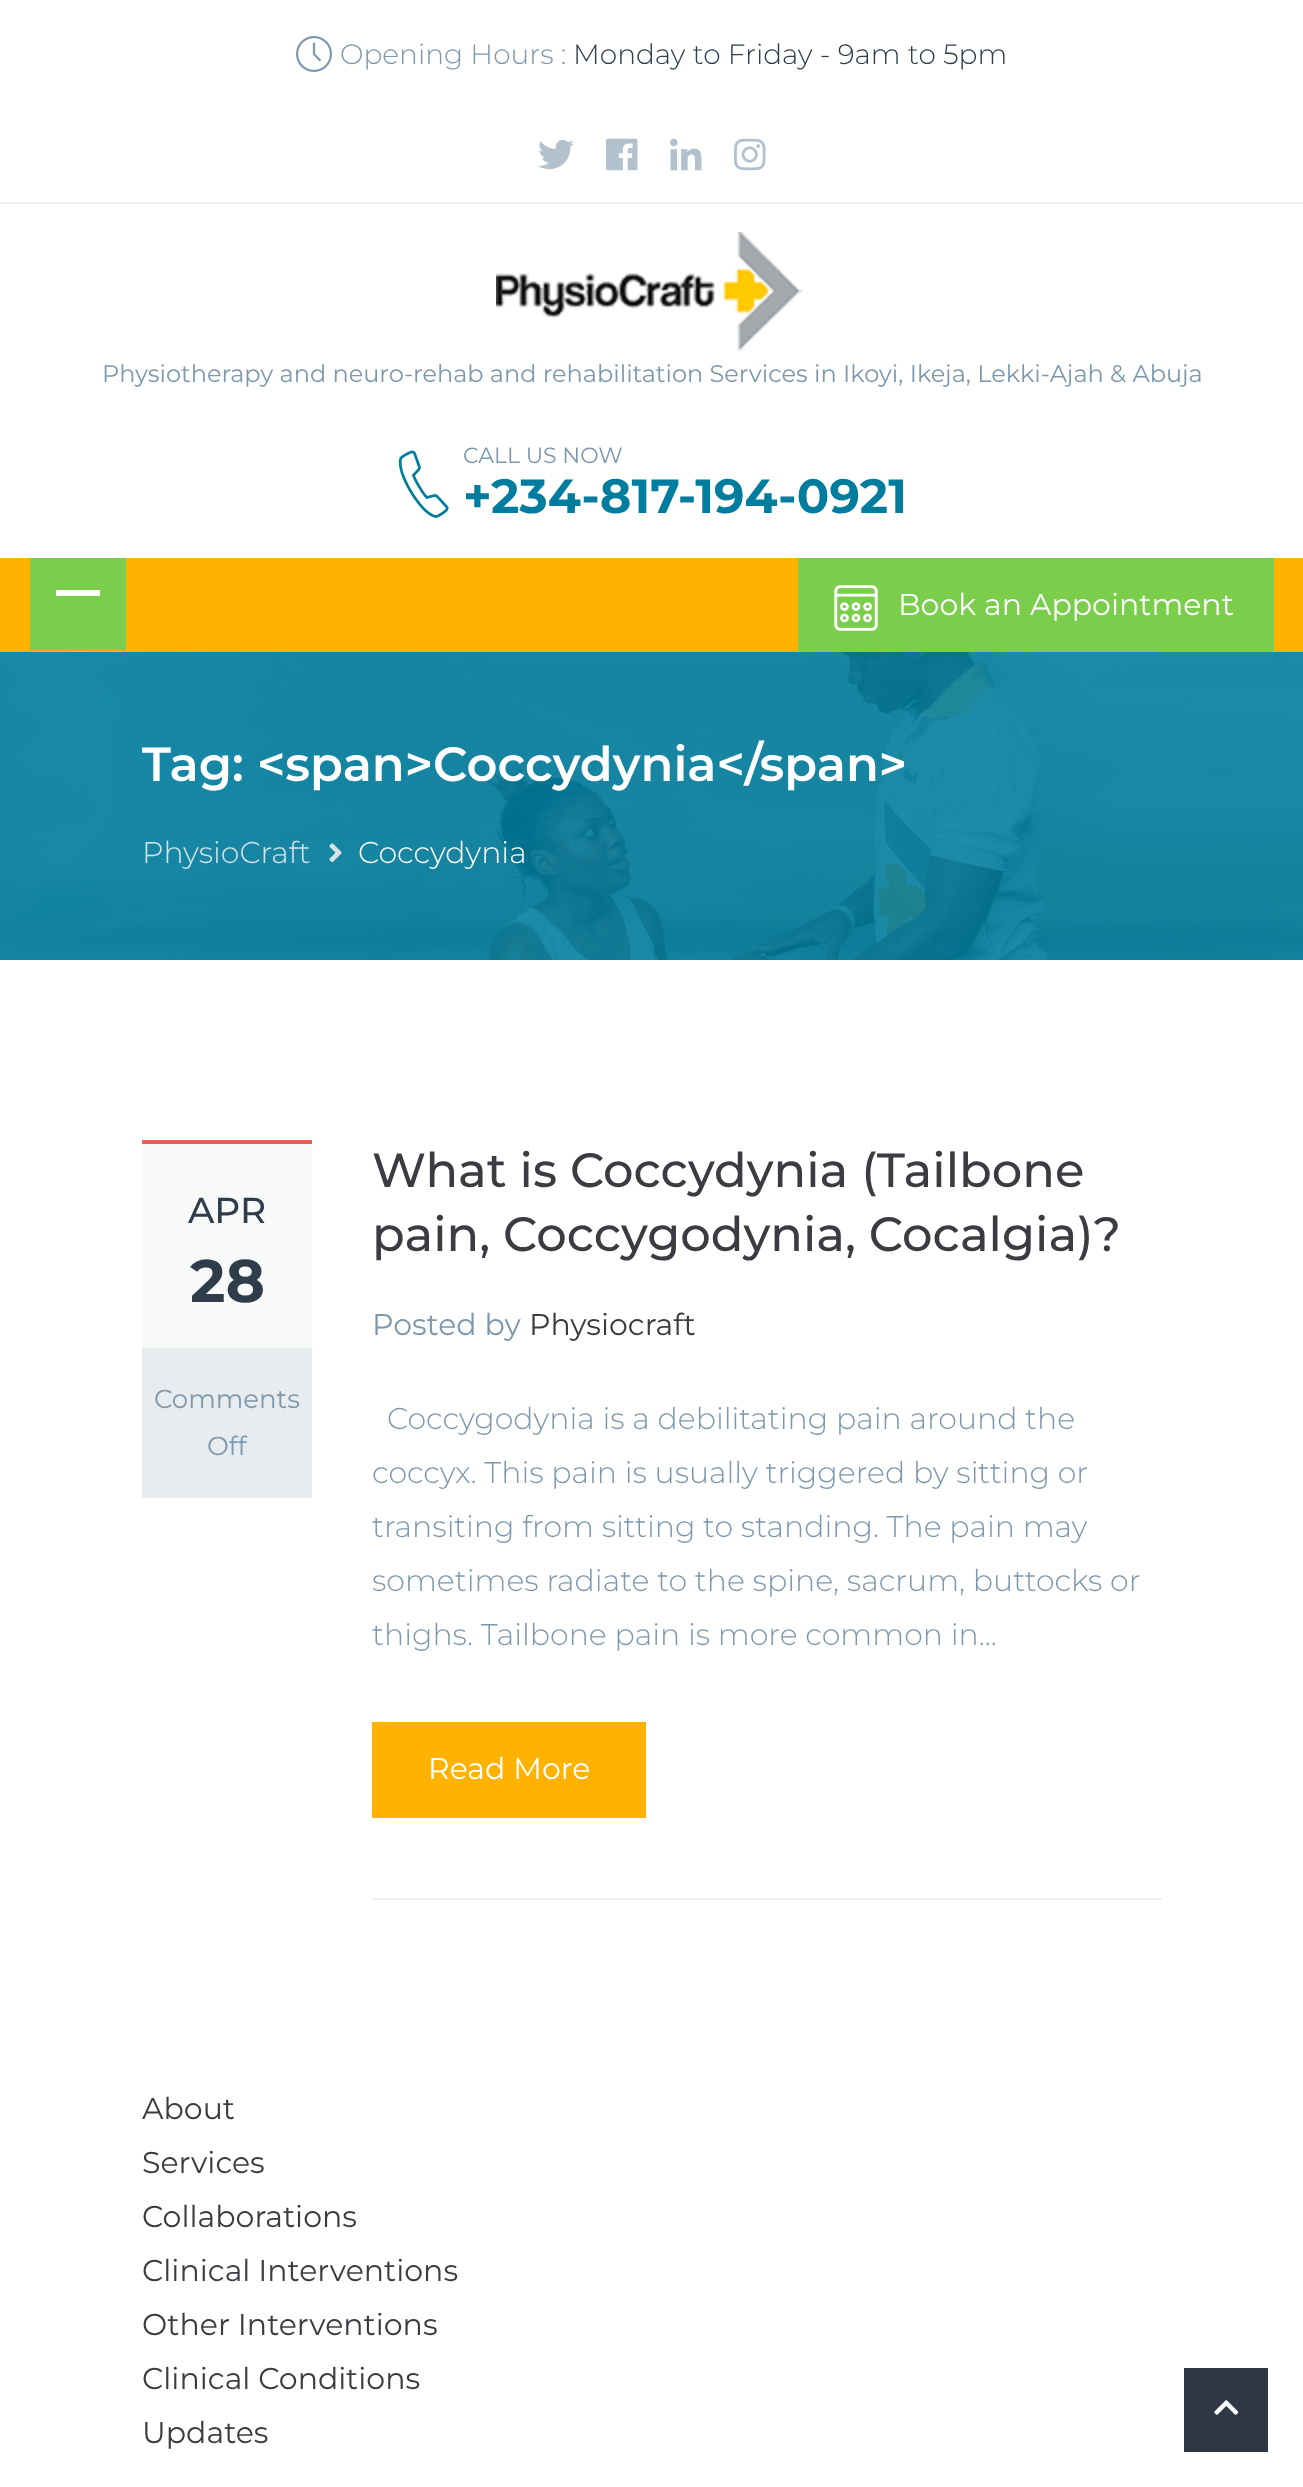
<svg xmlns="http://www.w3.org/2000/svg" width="1303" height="2487">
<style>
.a{font:300 28px Montserrat;fill:#7d98ad}
.b{font:300 28px Montserrat;fill:#2f3d4a}
.c{font:24px Montserrat;fill:#7d98ad}
.d{font:22px Montserrat;fill:#7d98ad}
.e{font:bold 48px Montserrat;fill:#007d9e}
.f{font:30px Montserrat;fill:#fff}
.g{font:600 48px Montserrat;fill:#fff}
.h{font:300 30px Montserrat;fill:#d5e4ea}
.i{font:300 30px Montserrat;fill:#fff}
.j{font:500 36px Montserrat;fill:#2f3d4a}
.k{font:bold 60px Montserrat;fill:#2f3d4a}
.l{font:26px Montserrat;fill:#7d98ad}
.m{font:500 48px Montserrat;fill:#3a3c41}
.n{font:30px Montserrat;fill:#7d98ad}
.o{font:30px Montserrat;fill:#3a3c41}
.p{font:300 30px Montserrat;fill:#7d98ad}
</style>
<rect width="100%" height="100%" fill="#fff"/>
<path fill="#ecf1f2" d="M0 202h1303v2H0z"/>
<image href="1.png" x="296" y="36" width="36" height="36"/>
<image href="2.png" x="538" y="139" width="36" height="31"/>
<image href="3.png" x="606" y="138" width="32" height="33"/>
<image href="4.png" x="670" y="138" width="32" height="33"/>
<image href="5.png" x="734" y="138" width="32" height="33"/>
<image href="6.png" x="496" y="232" width="307" height="120"/>
<image href="7.png" x="398" y="450" width="51" height="68"/>
<path fill="#ffb200" d="M0 558h1303v94H0z"/>
<path fill="#7ace4c" d="M30 558h96v92H30z"/>
<path fill="#fff" d="M56 590h44v6H56z"/>
<path fill="#7ace4c" d="M798 558h476v94H798z"/>
<image href="8.png" x="834" y="585" width="44" height="46"/>
<image href="9.png" x="0" y="652" width="1303" height="308"/>
<image href="10.png" x="329" y="843" width="13" height="20"/>
<path fill="#f15b5a" d="M142 1140h170v4H142z"/>
<path fill="#f8fafa" d="M142 1144h170v204H142z"/>
<path fill="#e7ecee" d="M142 1348h170v150H142z"/>
<path fill="#ecf1f2" d="M372 1898h790v2H372z"/>
<path fill="#ffb200" d="M372 1722h274v96H372z"/>
<path fill="#2f3644" d="M1184 2368h84v84H1184z"/>
<image href="11.png" x="1214" y="2400" width="25" height="15"/>
<text class="a" x="340" y="64">Opening Hours :</text>
<text class="b" x="573" y="64">Monday to Friday - 9am to 5pm</text>
<text class="c" x="102" y="382">Physiotherapy and neuro-rehab and rehabilitation Services in Ikoyi, Ikeja, Lekki-Ajah &amp; Abuja</text>
<text class="d" x="463" y="463">CALL US NOW</text>
<text class="e" x="463" y="513">+234-817-194-0921</text>
<text class="f" x="898" y="615">Book an Appointment</text>
<text class="g" x="142" y="781">Tag: &lt;span&gt;Coccydynia&lt;/span&gt;</text>
<text class="h" x="142" y="863">PhysioCraft</text>
<text class="i" x="358" y="863">Coccydynia</text>
<text class="j" x="188" y="1223">APR</text>
<text class="k" x="190" y="1302">28</text>
<text class="l" x="154" y="1408">Comments</text>
<text class="l" x="207" y="1455">Off</text>
<text class="m" x="372" y="1187">What is Coccydynia (Tailbone</text>
<text class="m" x="372" y="1251">pain, Coccygodynia, Cocalgia)?</text>
<text class="n" x="372" y="1335">Posted by</text>
<text class="o" x="529" y="1335">Physiocraft</text>
<text class="p" x="387" y="1429">Coccygodynia is a debilitating pain around the</text>
<text class="p" x="372" y="1483">coccyx. This pain is usually triggered by sitting or</text>
<text class="p" x="372" y="1537">transiting from sitting to standing. The pain may</text>
<text class="p" x="372" y="1591">sometimes radiate to the spine, sacrum, buttocks or</text>
<text class="p" x="372" y="1645">thighs. Tailbone pain is more common in...</text>
<text class="f" x="428" y="1779">Read More</text>
<text class="o" x="142" y="2119">About</text>
<text class="o" x="142" y="2173">Services</text>
<text class="o" x="142" y="2227">Collaborations</text>
<text class="o" x="142" y="2281">Clinical Interventions</text>
<text class="o" x="142" y="2335">Other Interventions</text>
<text class="o" x="142" y="2389">Clinical Conditions</text>
<text class="o" x="142" y="2443">Updates</text>
</svg>
